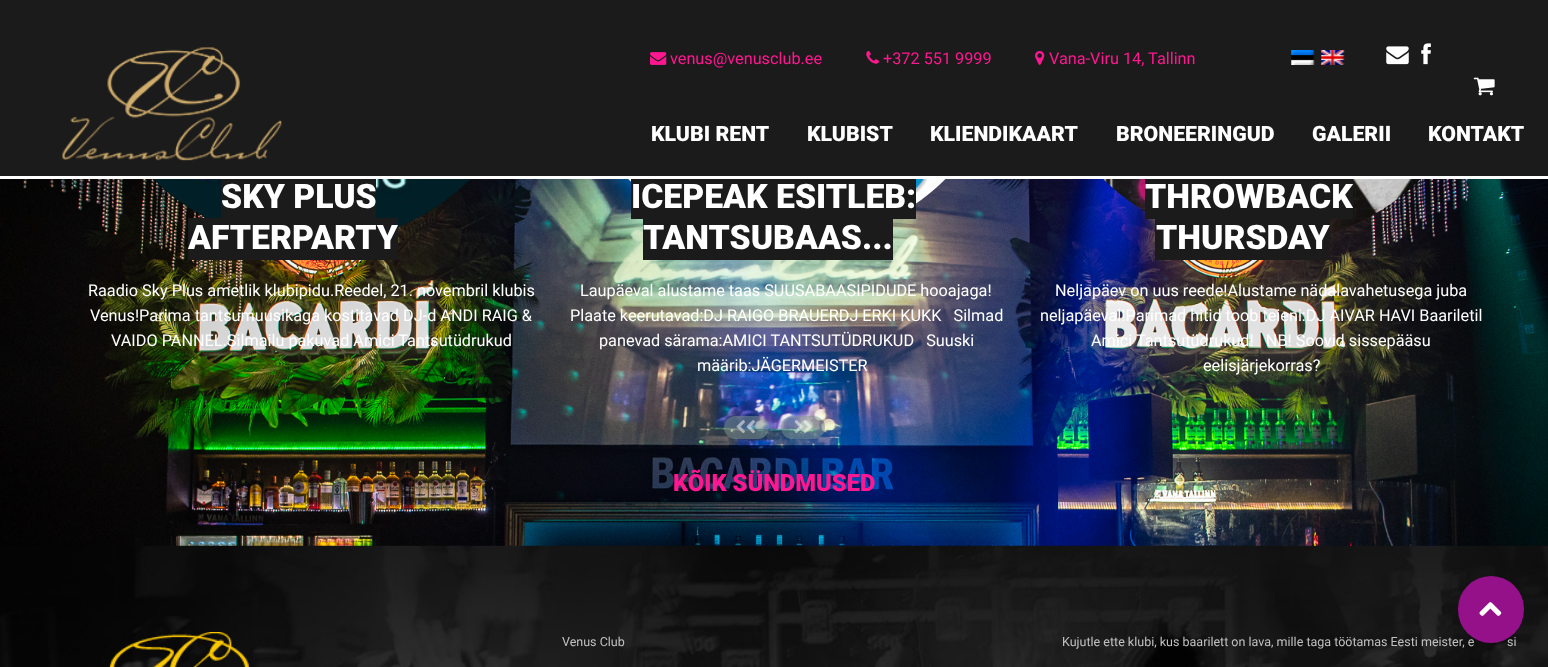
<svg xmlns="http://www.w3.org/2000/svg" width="1548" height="667">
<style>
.a{font:16.25px Roboto;fill:#ff1791}
.b{font:900 21.25px Roboto;fill:#fff}
.c{font:900 33.75px Roboto;fill:#fff}
.d{font:16.25px Roboto;fill:#fff}
.e{font:900 23.75px Roboto;fill:#ff1791}
.f{font:12.5px Roboto;fill:#c1c1c1}
</style>
<rect width="100%" height="100%" fill="#fff"/>
<image href="1.png" x="0" y="179" width="1548" height="367"/>
<path fill="#1b1b1b" d="M0 0h1548v176H0z"/>
<image href="2.png" x="62" y="47" width="220" height="114"/>
<image href="3.png" x="650" y="52" width="17" height="13"/>
<image href="4.png" x="866" y="51" width="13" height="13"/>
<image href="5.png" x="1035" y="51" width="10" height="14"/>
<image href="6.png" x="1291" y="50" width="24" height="15"/>
<image href="7.png" x="1321" y="50" width="24" height="15"/>
<image href="8.png" x="1386" y="46" width="23" height="19"/>
<image href="9.png" x="1421" y="43" width="10" height="22"/>
<image href="10.png" x="1473" y="77" width="22" height="19"/>
<image href="11.png" x="153" y="179" width="318" height="49"/>
<path fill="#1b1b1b" d="M221 179h155v39H221z"/>
<path fill="#1b1b1b" d="M188 218h210v42H188z"/>
<image href="12.png" x="628" y="179" width="318" height="25"/>
<path fill="#1b1b1b" d="M631 179h285v40H631z"/>
<path fill="#1b1b1b" d="M643 219h250v41H643z"/>
<image href="13.png" x="1103" y="179" width="318" height="55"/>
<path fill="#1b1b1b" d="M1145 179h208v40H1145z"/>
<path fill="#1b1b1b" d="M1155 219h175v41H1155z"/>
<rect fill="#86979180" x="724" y="416" width="45" height="23" rx="11.5"/>
<image href="14.png" x="736" y="420" width="9" height="14"/>
<image href="15.png" x="746" y="420" width="9" height="14"/>
<rect fill="#86979180" x="781" y="416" width="44" height="23" rx="11.5"/>
<image href="16.png" x="794" y="420" width="9" height="14"/>
<image href="17.png" x="803" y="420" width="9" height="14"/>
<image href="18.png" x="0" y="545" width="1548" height="122"/>
<image href="19.png" x="109" y="632" width="140" height="35"/>
<text class="a" x="670" y="64">venus@venusclub.ee</text>
<text class="a" x="883" y="64">+372 551 9999</text>
<text class="a" x="1049" y="64">Vana-Viru 14, Tallinn</text>
<text class="b" x="651" y="141">KLUBI RENT</text>
<text class="b" x="807" y="141">KLUBIST</text>
<text class="b" x="930" y="141">KLIENDIKAART</text>
<text class="b" x="1116" y="141">BRONEERINGUD</text>
<text class="b" x="1312" y="141">GALERII</text>
<text class="b" x="1428" y="141">KONTAKT</text>
<text class="c" x="221" y="208">SKY PLUS</text>
<text class="c" x="188" y="249">AFTERPARTY</text>
<text class="d" x="88" y="296">Raadio Sky Plus ametlik klubipidu.Reedel, 21. novembril klubis</text>
<text class="d" x="90" y="321">Venus!Parima tantsumuusikaga kostitavad DJ-d ANDI RAIG &amp;</text>
<text class="d" x="111" y="346">VAIDO PANNEL.Silmailu pakuvad Amici Tantsutüdrukud</text>
<text class="c" x="631" y="208">ICEPEAK ESITLEB:</text>
<text class="c" x="643" y="249">TANTSUBAAS...</text>
<text class="d" x="580" y="296">Laupäeval alustame taas SUUSABAASIPIDUDE hooajaga!</text>
<text class="d" xml:space="preserve" x="570" y="321">Plaate keerutavad:DJ RAIGO BRAUERDJ ERKI KUKK   Silmad</text>
<text class="d" xml:space="preserve" x="599" y="346">panevad särama:AMICI TANTSUTÜDRUKUD   Suuski</text>
<text class="d" x="697" y="371">määrib:JÄGERMEISTER</text>
<text class="c" x="1145" y="208">THROWBACK</text>
<text class="c" x="1156" y="249">THURSDAY</text>
<text class="d" x="1055" y="296">Neljapäev on uus reede!Alustame nädalavahetusega juba</text>
<text class="d" x="1040" y="321">neljapäeval!Parimad hitid toob teieni:DJ AIVAR HAVI Baariletil</text>
<text class="d" xml:space="preserve" x="1091" y="346">Amici Tantsutüdrukud!   NB! Soovid sissepääsu</text>
<text class="d" x="1203" y="371">eelisjärjekorras?</text>
<text class="e" x="673" y="491">KÕIK SÜNDMUSED</text>
<text class="f" x="562" y="646">Venus Club</text>
<text class="f" x="1062" y="646">Kujutle ette klubi, kus baarilett on lava, mille taga töötamas Eesti meister, e</text>
<text class="f" x="1507" y="646">si</text>
<rect fill="#94118a" x="1458" y="576" width="66" height="67" rx="33"/>
<image href="20.png" x="1479" y="602" width="23" height="14"/>
</svg>
